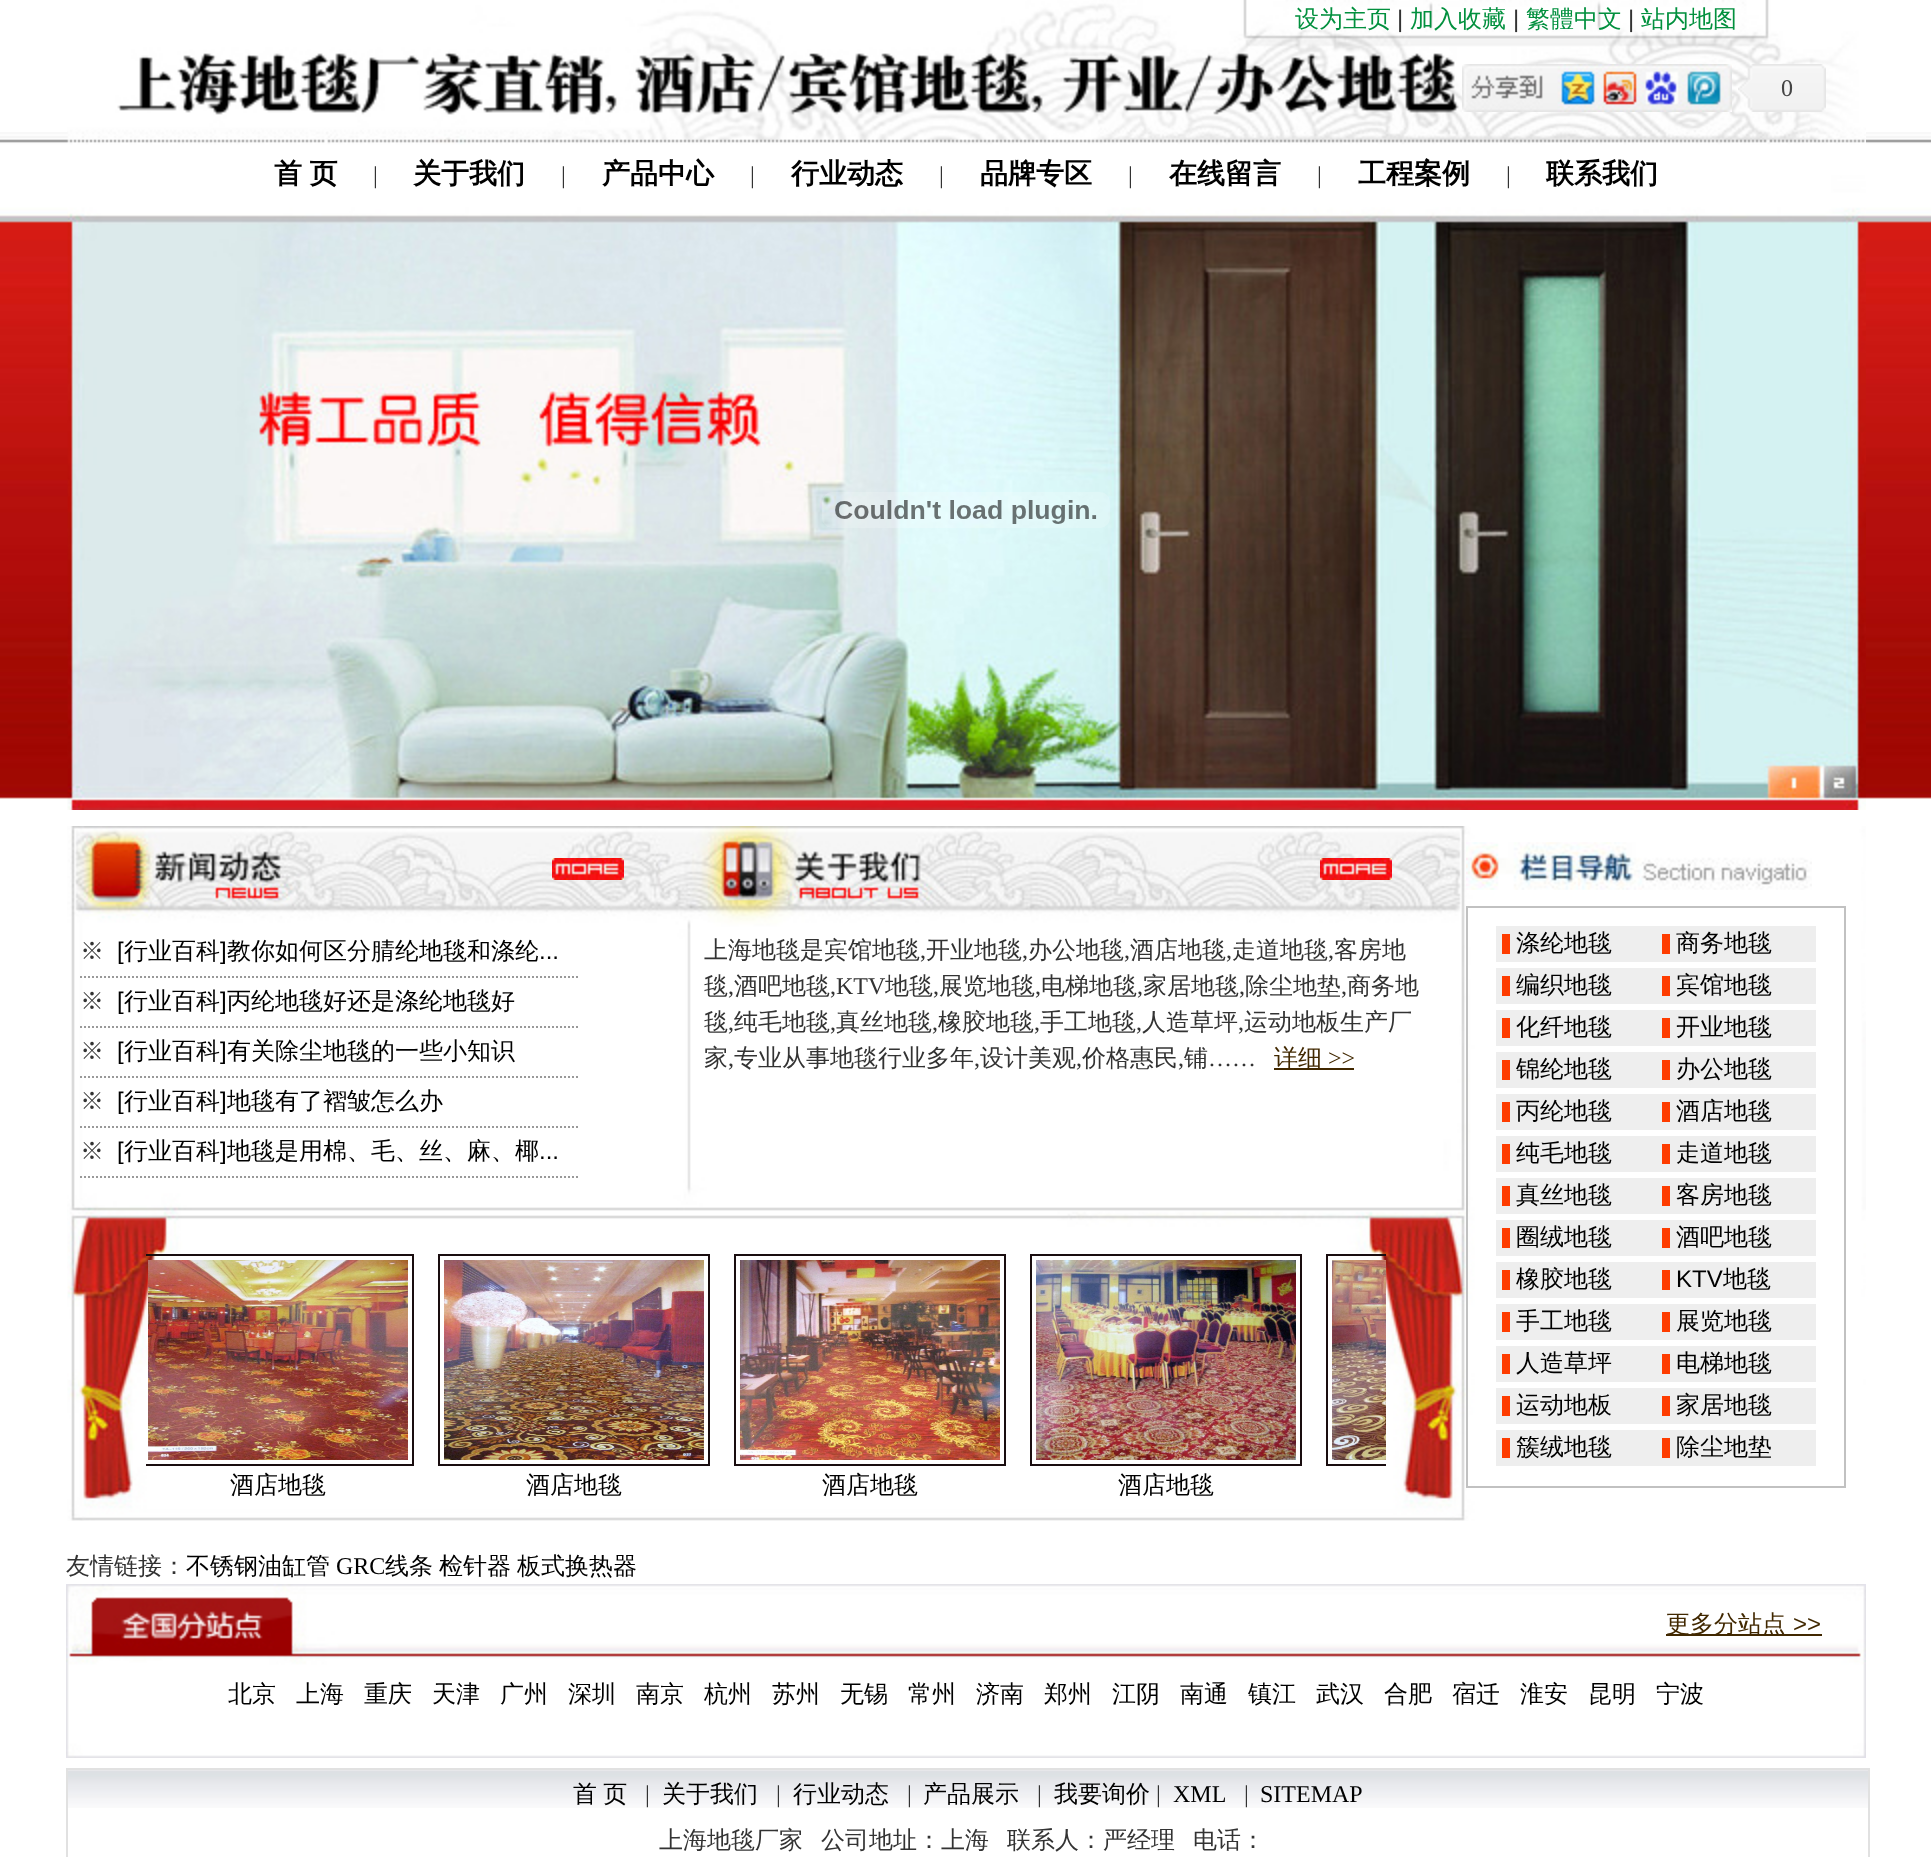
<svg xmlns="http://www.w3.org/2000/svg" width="1931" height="1857">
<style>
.a{font:500 24px WenQuanYi Zen Hei;fill:#02903e}
.b{font:24px Liberation Sans;fill:#333}
.c{font:24px Liberation Serif;fill:#454545}
.d{font:bold 28px WenQuanYi Zen Hei;fill:#000}
.e{font:24px Liberation Serif;fill:#333}
.f{font:500 24px WenQuanYi Zen Hei;fill:#333}
.g{font:24px Liberation Sans;fill:#000}
.h{font:500 24px WenQuanYi Zen Hei;fill:#000}
.i{font:500 24px WenQuanYi Zen Hei;fill:#412800}
.j{font:24px Liberation Serif;fill:#412800}
.k{font:24px Liberation Serif;fill:#000}
.l{font:24px Liberation Sans;fill:#412800}
</style>
<defs>
<clipPath id="clip1"><path d="M146 1250h1240v250H146z"/></clipPath>
</defs>
<rect width="100%" height="100%" fill="#fff"/>
<image href="1.png" x="0" y="132" width="1931" height="667"/>
<image href="2.png" x="67" y="0" width="1799" height="810"/>
<image href="3.png" x="1462" y="64" width="270" height="48"/>
<image href="4.png" x="1738" y="64" width="88" height="48"/>
<image href="5.png" x="822" y="492" width="288" height="36"/>
<image href="6.png" x="67" y="826" width="1799" height="695"/>
<image href="7.png" x="552" y="858" width="72" height="22"/>
<image href="7.png" x="1320" y="858" width="72" height="22"/>
<path fill="none" stroke="#999" stroke-width="2" stroke-dasharray="2 2" d="M80 977h500"/>
<path fill="none" stroke="#999" stroke-width="2" stroke-dasharray="2 2" d="M80 1027h500"/>
<path fill="none" stroke="#999" stroke-width="2" stroke-dasharray="2 2" d="M80 1077h500"/>
<path fill="none" stroke="#999" stroke-width="2" stroke-dasharray="2 2" d="M80 1127h500"/>
<path fill="none" stroke="#999" stroke-width="2" stroke-dasharray="2 2" d="M80 1177h500"/>
<path fill="#412800" d="M1274 1068h80v2H1274z"/>
<image href="8.png" x="1466" y="842" width="346" height="48"/>
<path fill="none" stroke="#c1c1c1" stroke-width="2" d="M1467 907h378v580H1467z"/>
<path fill="#eee" d="M1496 926h320v36H1496z"/>
<path fill="#fe3c00" d="M1502 934h8v20H1502z"/>
<path fill="#eee" d="M1496 968h320v36H1496z"/>
<path fill="#fe3c00" d="M1502 976h8v20H1502z"/>
<path fill="#eee" d="M1496 1010h320v36H1496z"/>
<path fill="#fe3c00" d="M1502 1018h8v20H1502z"/>
<path fill="#eee" d="M1496 1052h320v36H1496z"/>
<path fill="#fe3c00" d="M1502 1060h8v20H1502z"/>
<path fill="#eee" d="M1496 1094h320v36H1496z"/>
<path fill="#fe3c00" d="M1502 1102h8v20H1502z"/>
<path fill="#eee" d="M1496 1136h320v36H1496z"/>
<path fill="#fe3c00" d="M1502 1144h8v20H1502z"/>
<path fill="#eee" d="M1496 1178h320v36H1496z"/>
<path fill="#fe3c00" d="M1502 1186h8v20H1502z"/>
<path fill="#eee" d="M1496 1220h320v36H1496z"/>
<path fill="#fe3c00" d="M1502 1228h8v20H1502z"/>
<path fill="#eee" d="M1496 1262h320v36H1496z"/>
<path fill="#fe3c00" d="M1502 1270h8v20H1502z"/>
<path fill="#eee" d="M1496 1304h320v36H1496z"/>
<path fill="#fe3c00" d="M1502 1312h8v20H1502z"/>
<path fill="#eee" d="M1496 1346h320v36H1496z"/>
<path fill="#fe3c00" d="M1502 1354h8v20H1502z"/>
<path fill="#eee" d="M1496 1388h320v36H1496z"/>
<path fill="#fe3c00" d="M1502 1396h8v20H1502z"/>
<path fill="#eee" d="M1496 1430h320v36H1496z"/>
<path fill="#fe3c00" d="M1502 1438h8v20H1502z"/>
<path fill="#fe3c00" d="M1662 934h8v20H1662z"/>
<path fill="#fe3c00" d="M1662 976h8v20H1662z"/>
<path fill="#fe3c00" d="M1662 1018h8v20H1662z"/>
<path fill="#fe3c00" d="M1662 1060h8v20H1662z"/>
<path fill="#fe3c00" d="M1662 1102h8v20H1662z"/>
<path fill="#fe3c00" d="M1662 1144h8v20H1662z"/>
<path fill="#fe3c00" d="M1662 1186h8v20H1662z"/>
<path fill="#fe3c00" d="M1662 1228h8v20H1662z"/>
<path fill="#fe3c00" d="M1662 1270h8v20H1662z"/>
<path fill="#fe3c00" d="M1662 1312h8v20H1662z"/>
<path fill="#fe3c00" d="M1662 1354h8v20H1662z"/>
<path fill="#fe3c00" d="M1662 1396h8v20H1662z"/>
<path fill="#fe3c00" d="M1662 1438h8v20H1662z"/>
<g clip-path="url(#clip1)">
<path fill="none" stroke="#190d0f" stroke-width="2" d="M143 1255h270v210H143z"/>
</g>
<image href="10.png" x="148" y="1260" width="260" height="200"/>
<path fill="none" stroke="#190d0f" stroke-width="2" d="M439 1255h270v210H439z"/>
<image href="11.png" x="444" y="1260" width="260" height="200"/>
<path fill="none" stroke="#190d0f" stroke-width="2" d="M735 1255h270v210H735z"/>
<image href="12.png" x="740" y="1260" width="260" height="200"/>
<path fill="none" stroke="#190d0f" stroke-width="2" d="M1031 1255h270v210H1031z"/>
<image href="13.png" x="1036" y="1260" width="260" height="200"/>
<image href="14.png" x="66" y="1584" width="1800" height="174"/>
<path fill="#412800" d="M1666 1634h156v2H1666z"/>
<image href="15.png" x="68" y="1770" width="1800" height="38"/>
<path fill="none" stroke="#e1e1e1" stroke-width="2" d="M67 1769h1802v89H67z"/>
<text class="a" x="1295" y="27">设为主页</text>
<text class="b" x="1397" y="27">|</text>
<text class="a" x="1410" y="27">加入收藏</text>
<text class="b" x="1513" y="27">|</text>
<text class="a" x="1526" y="27">繁體中文</text>
<text class="b" x="1628" y="27">|</text>
<text class="a" x="1641" y="27">站内地图</text>
<text class="c" x="1781" y="96">0</text>
<text class="d" x="274" y="183" word-spacing="-1">首 页</text>
<text class="e" x="373" y="183">|</text>
<text class="d" x="413" y="183">关于我们</text>
<text class="e" x="561" y="183">|</text>
<text class="d" x="602" y="183">产品中心</text>
<text class="e" x="750" y="183">|</text>
<text class="d" x="791" y="183">行业动态</text>
<text class="e" x="939" y="183">|</text>
<text class="d" x="980" y="183">品牌专区</text>
<text class="e" x="1128" y="183">|</text>
<text class="d" x="1169" y="183">在线留言</text>
<text class="e" x="1317" y="183">|</text>
<text class="d" x="1358" y="183">工程案例</text>
<text class="e" x="1506" y="183">|</text>
<text class="d" x="1546" y="183">联系我们</text>
<text class="f" x="80" y="959">※</text>
<text class="g" x="117" y="959">[</text>
<text class="h" x="124" y="959">行业百科</text>
<text class="g" x="220" y="959">]</text>
<text class="h" x="227" y="959">教你如何区分腈纶地毯和涤纶</text>
<text class="g" x="539" y="959">...</text>
<text class="f" x="80" y="1009">※</text>
<text class="g" x="117" y="1009">[</text>
<text class="h" x="124" y="1009">行业百科</text>
<text class="g" x="220" y="1009">]</text>
<text class="h" x="227" y="1009">丙纶地毯好还是涤纶地毯好</text>
<text class="f" x="80" y="1059">※</text>
<text class="g" x="117" y="1059">[</text>
<text class="h" x="124" y="1059">行业百科</text>
<text class="g" x="220" y="1059">]</text>
<text class="h" x="227" y="1059">有关除尘地毯的一些小知识</text>
<text class="f" x="80" y="1109">※</text>
<text class="g" x="117" y="1109">[</text>
<text class="h" x="124" y="1109">行业百科</text>
<text class="g" x="220" y="1109">]</text>
<text class="h" x="227" y="1109">地毯有了褶皱怎么办</text>
<text class="f" x="80" y="1159">※</text>
<text class="g" x="117" y="1159">[</text>
<text class="h" x="124" y="1159">行业百科</text>
<text class="g" x="220" y="1159">]</text>
<text class="h" x="227" y="1159">地毯是用棉、毛、丝、麻、椰</text>
<text class="g" x="539" y="1159">...</text>
<text class="f" x="704" y="958">上海地毯是宾馆地毯</text>
<text class="e" x="920" y="958">,</text>
<text class="f" x="926" y="958">开业地毯</text>
<text class="e" x="1022" y="958">,</text>
<text class="f" x="1028" y="958">办公地毯</text>
<text class="e" x="1124" y="958">,</text>
<text class="f" x="1130" y="958">酒店地毯</text>
<text class="e" x="1226" y="958">,</text>
<text class="f" x="1232" y="958">走道地毯</text>
<text class="e" x="1328" y="958">,</text>
<text class="f" x="1334" y="958">客房地</text>
<text class="f" x="704" y="994">毯</text>
<text class="e" x="728" y="994">,</text>
<text class="f" x="734" y="994">酒吧地毯</text>
<text class="e" x="830" y="994">,KTV</text>
<text class="f" x="885" y="994">地毯</text>
<text class="e" x="933" y="994">,</text>
<text class="f" x="939" y="994">展览地毯</text>
<text class="e" x="1035" y="994">,</text>
<text class="f" x="1041" y="994">电梯地毯</text>
<text class="e" x="1137" y="994">,</text>
<text class="f" x="1143" y="994">家居地毯</text>
<text class="e" x="1239" y="994">,</text>
<text class="f" x="1245" y="994">除尘地垫</text>
<text class="e" x="1341" y="994">,</text>
<text class="f" x="1347" y="994">商务地</text>
<text class="f" x="704" y="1030">毯</text>
<text class="e" x="728" y="1030">,</text>
<text class="f" x="734" y="1030">纯毛地毯</text>
<text class="e" x="830" y="1030">,</text>
<text class="f" x="836" y="1030">真丝地毯</text>
<text class="e" x="932" y="1030">,</text>
<text class="f" x="938" y="1030">橡胶地毯</text>
<text class="e" x="1034" y="1030">,</text>
<text class="f" x="1040" y="1030">手工地毯</text>
<text class="e" x="1136" y="1030">,</text>
<text class="f" x="1142" y="1030">人造草坪</text>
<text class="e" x="1238" y="1030">,</text>
<text class="f" x="1244" y="1030">运动地板生产厂</text>
<text class="f" x="704" y="1066">家</text>
<text class="f" x="734" y="1066">专业从事地毯行业多年</text>
<text class="f" x="980" y="1066">设计美观</text>
<text class="f" x="1082" y="1066">价格惠民</text>
<text class="f" x="1184" y="1066">铺</text>
<text class="i" x="1274" y="1066">详细</text>
<text class="j" x="1328" y="1066">&gt;&gt;</text>
<text class="e" x="728" y="1066">,</text>
<text class="e" x="974" y="1066">,</text>
<text class="e" x="1076" y="1066">,</text>
<text class="e" x="1178" y="1066">,</text>
<text class="e" x="1208" y="1066">……</text>
<text class="h" x="1516" y="951">涤纶地毯</text>
<text class="h" x="1516" y="993">编织地毯</text>
<text class="h" x="1516" y="1035">化纤地毯</text>
<text class="h" x="1516" y="1077">锦纶地毯</text>
<text class="h" x="1516" y="1119">丙纶地毯</text>
<text class="h" x="1516" y="1161">纯毛地毯</text>
<text class="h" x="1516" y="1203">真丝地毯</text>
<text class="h" x="1516" y="1245">圈绒地毯</text>
<text class="h" x="1516" y="1287">橡胶地毯</text>
<text class="h" x="1516" y="1329">手工地毯</text>
<text class="h" x="1516" y="1371">人造草坪</text>
<text class="h" x="1516" y="1413">运动地板</text>
<text class="h" x="1516" y="1455">簇绒地毯</text>
<text class="h" x="1676" y="951">商务地毯</text>
<text class="h" x="1676" y="993">宾馆地毯</text>
<text class="h" x="1676" y="1035">开业地毯</text>
<text class="h" x="1676" y="1077">办公地毯</text>
<text class="h" x="1676" y="1119">酒店地毯</text>
<text class="h" x="1676" y="1161">走道地毯</text>
<text class="h" x="1676" y="1203">客房地毯</text>
<text class="h" x="1676" y="1245">酒吧地毯</text>
<text class="g" x="1676" y="1287">KTV</text>
<text class="h" x="1723" y="1287">地毯</text>
<text class="h" x="1676" y="1329">展览地毯</text>
<text class="h" x="1676" y="1371">电梯地毯</text>
<text class="h" x="1676" y="1413">家居地毯</text>
<text class="h" x="1676" y="1455">除尘地垫</text>
<g clip-path="url(#clip1)">
<path fill="none" stroke="#190d0f" stroke-width="2" d="M1327 1255h270v210H1327z"/>
</g>
<image href="9.png" x="1332" y="1260" width="54" height="200"/>
<text class="h" x="230" y="1493">酒店地毯</text>
<text class="h" x="526" y="1493">酒店地毯</text>
<text class="h" x="822" y="1493">酒店地毯</text>
<text class="h" x="1118" y="1493">酒店地毯</text>
<text class="f" x="66" y="1574">友情链接：</text>
<text class="h" x="186" y="1574">不锈钢油缸管</text>
<text class="k" x="336" y="1574">GRC</text>
<text class="h" x="385" y="1574">线条</text>
<text class="h" x="439" y="1574">检针器</text>
<text class="h" x="517" y="1574">板式换热器</text>
<text class="i" x="1666" y="1632">更多分站点</text>
<text class="l" x="1793" y="1632">&gt;&gt;</text>
<text class="h" x="228" y="1702">北京</text>
<text class="h" x="296" y="1702">上海</text>
<text class="h" x="364" y="1702">重庆</text>
<text class="h" x="432" y="1702">天津</text>
<text class="h" x="500" y="1702">广州</text>
<text class="h" x="568" y="1702">深圳</text>
<text class="h" x="636" y="1702">南京</text>
<text class="h" x="704" y="1702">杭州</text>
<text class="h" x="772" y="1702">苏州</text>
<text class="h" x="840" y="1702">无锡</text>
<text class="h" x="908" y="1702">常州</text>
<text class="h" x="976" y="1702">济南</text>
<text class="h" x="1044" y="1702">郑州</text>
<text class="h" x="1112" y="1702">江阴</text>
<text class="h" x="1180" y="1702">南通</text>
<text class="h" x="1248" y="1702">镇江</text>
<text class="h" x="1316" y="1702">武汉</text>
<text class="h" x="1384" y="1702">合肥</text>
<text class="h" x="1452" y="1702">宿迁</text>
<text class="h" x="1520" y="1702">淮安</text>
<text class="h" x="1588" y="1702">昆明</text>
<text class="h" x="1656" y="1702">宁波</text>
<text class="h" x="573" y="1802" word-spacing="-1">首 页</text>
<text class="e" x="645" y="1802">|</text>
<text class="h" x="662" y="1802">关于我们</text>
<text class="e" x="776" y="1802">|</text>
<text class="h" x="793" y="1802">行业动态</text>
<text class="e" x="907" y="1802">|</text>
<text class="h" x="923" y="1802">产品展示</text>
<text class="e" x="1037" y="1802">|</text>
<text class="h" x="1054" y="1802">我要询价</text>
<text class="e" x="1156" y="1802">|</text>
<text class="k" x="1173" y="1802">XML</text>
<text class="e" x="1244" y="1802">|</text>
<text class="k" x="1260" y="1802">SITEMAP</text>
<text class="f" x="659" y="1848">上海地毯厂家</text>
<text class="f" x="821" y="1848">公司地址：上海</text>
<text class="f" x="1007" y="1848">联系人：严经理</text>
<text class="f" x="1193" y="1848">电话：</text>
</svg>
